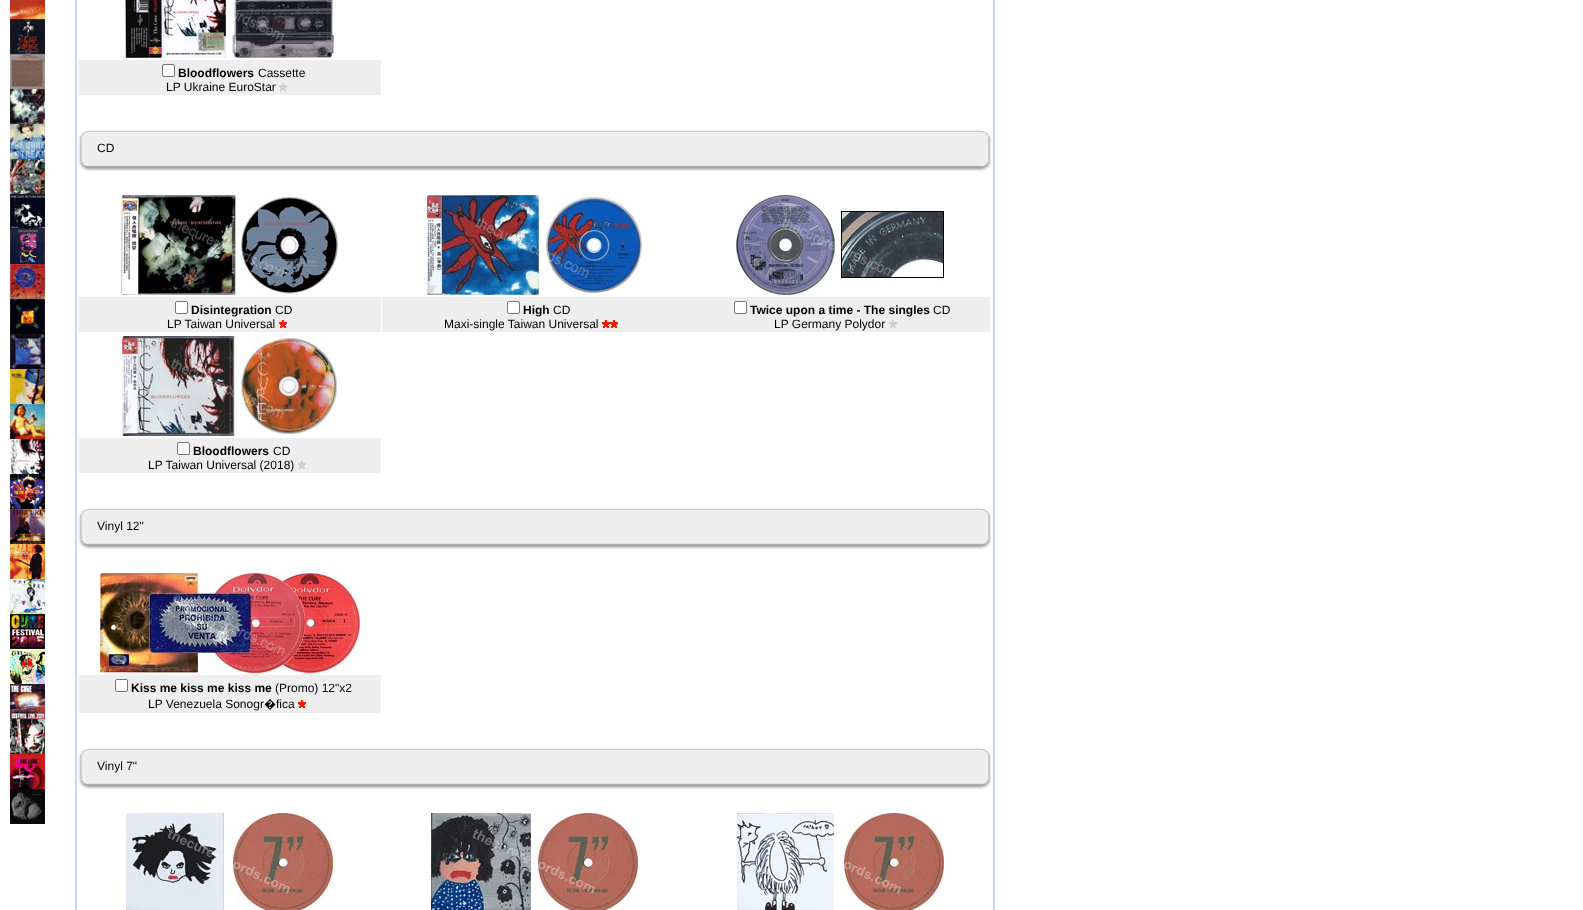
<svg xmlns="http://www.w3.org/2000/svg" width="1583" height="910">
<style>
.a{font:bold 12px Liberation Sans;fill:#000}
.b{font:12px Liberation Sans;fill:#000}
.c{font:12px Noto Sans;fill:#000}
</style>
<rect width="100%" height="100%" fill="#fff"/>
<image href="1.png" x="10" y="0" width="35" height="19"/>
<image href="2.png" x="10" y="19" width="35" height="35"/>
<image href="3.png" x="10" y="54" width="35" height="35"/>
<image href="4.png" x="10" y="89" width="35" height="35"/>
<image href="5.png" x="10" y="124" width="35" height="35"/>
<image href="6.png" x="10" y="159" width="35" height="35"/>
<image href="7.png" x="10" y="194" width="35" height="35"/>
<image href="8.png" x="10" y="229" width="35" height="35"/>
<image href="9.png" x="10" y="264" width="35" height="35"/>
<image href="10.png" x="10" y="299" width="35" height="35"/>
<image href="11.png" x="10" y="334" width="35" height="35"/>
<image href="12.png" x="10" y="369" width="35" height="35"/>
<image href="13.png" x="10" y="404" width="35" height="35"/>
<image href="14.png" x="10" y="439" width="35" height="35"/>
<image href="15.png" x="10" y="474" width="35" height="35"/>
<image href="16.png" x="10" y="509" width="35" height="35"/>
<image href="17.png" x="10" y="544" width="35" height="35"/>
<image href="18.png" x="10" y="579" width="35" height="35"/>
<image href="19.png" x="10" y="614" width="35" height="35"/>
<image href="20.png" x="10" y="649" width="35" height="35"/>
<image href="21.png" x="10" y="684" width="35" height="35"/>
<image href="22.png" x="10" y="719" width="35" height="35"/>
<image href="23.png" x="10" y="754" width="35" height="35"/>
<image href="24.png" x="10" y="789" width="35" height="35"/>
<path fill="none" stroke="#c3d9ff" stroke-width="2" d="M76 -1h918v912H76z"/>
<image href="25.png" x="125" y="0" width="209" height="58"/>
<path fill="#eee" d="M79 60h302v35H79z"/>
<rect fill="#fff" stroke="#767676" x="162.5" y="64.5" width="12" height="12" rx="1.5"/>
<image href="26.png" x="279" y="83" width="8" height="8"/>
<image href="27.png" x="77" y="129" width="305" height="43"/>
<image href="28.png" x="382" y="129" width="305" height="43"/>
<image href="29.png" x="687" y="129" width="306" height="43"/>
<image href="30.png" x="121" y="195" width="217" height="100"/>
<path fill="#eee" d="M79 297h302v35H79z"/>
<rect fill="#fff" stroke="#767676" x="175.5" y="301.5" width="12" height="12" rx="1.5"/>
<image href="31.png" x="279" y="320" width="8" height="8"/>
<image href="32.png" x="427" y="195" width="215" height="100"/>
<path fill="#eee" d="M382 297h608v35H382z"/>
<rect fill="#fff" stroke="#767676" x="507.5" y="301.5" width="12" height="12" rx="1.5"/>
<image href="33.png" x="602" y="320" width="16" height="8"/>
<image href="34.png" x="736" y="195" width="208" height="100"/>
<rect fill="#fff" stroke="#767676" x="734.5" y="301.5" width="12" height="12" rx="1.5"/>
<image href="26.png" x="889" y="320" width="8" height="8"/>
<image href="35.png" x="122" y="336" width="215" height="100"/>
<path fill="#eee" d="M79 438h302v35H79z"/>
<rect fill="#fff" stroke="#767676" x="177.5" y="442.5" width="12" height="12" rx="1.5"/>
<image href="26.png" x="298" y="461" width="8" height="8"/>
<image href="27.png" x="77" y="507" width="305" height="43"/>
<image href="28.png" x="382" y="507" width="305" height="43"/>
<image href="29.png" x="687" y="507" width="306" height="43"/>
<image href="36.png" x="100" y="573" width="260" height="100"/>
<path fill="#eee" d="M79 675h302v38H79z"/>
<rect fill="#fff" stroke="#767676" x="115.5" y="679.5" width="12" height="12" rx="1.5"/>
<image href="31.png" x="298" y="700" width="8" height="8"/>
<image href="27.png" x="77" y="747" width="305" height="43"/>
<image href="28.png" x="382" y="747" width="305" height="43"/>
<image href="29.png" x="687" y="747" width="306" height="43"/>
<image href="37.png" x="126" y="813" width="207" height="97"/>
<image href="38.png" x="431" y="813" width="207" height="97"/>
<image href="39.png" x="737" y="813" width="207" height="97"/>
<text class="a" x="178" y="77">Bloodflowers</text>
<text class="b" x="258" y="77">Cassette</text>
<text class="b" x="166" y="91">LP Ukraine EuroStar</text>
<text class="b" x="97" y="152">CD</text>
<text class="a" x="191" y="314">Disintegration</text>
<text class="b" x="275" y="314">CD</text>
<text class="b" x="167" y="328">LP Taiwan Universal</text>
<text class="a" x="523" y="314">High</text>
<text class="b" x="553" y="314">CD</text>
<text class="b" x="444" y="328">Maxi-single Taiwan Universal</text>
<text class="a" x="750" y="314">Twice upon a time - The singles</text>
<text class="b" x="933" y="314">CD</text>
<text class="b" x="774" y="328">LP Germany Polydor</text>
<text class="a" x="193" y="455">Bloodflowers</text>
<text class="b" x="273" y="455">CD</text>
<text class="b" x="148" y="469">LP Taiwan Universal (2018)</text>
<text class="b" x="97" y="530">Vinyl 12"</text>
<text class="a" x="131" y="692">Kiss me kiss me kiss me</text>
<text class="b" x="275" y="692">(Promo) 12"x2</text>
<text class="b" x="148" y="708">LP Venezuela Sonogr</text>
<text class="c" x="264" y="708">�</text>
<text class="b" x="276" y="708">fica</text>
<text class="b" x="97" y="770">Vinyl 7"</text>
</svg>
